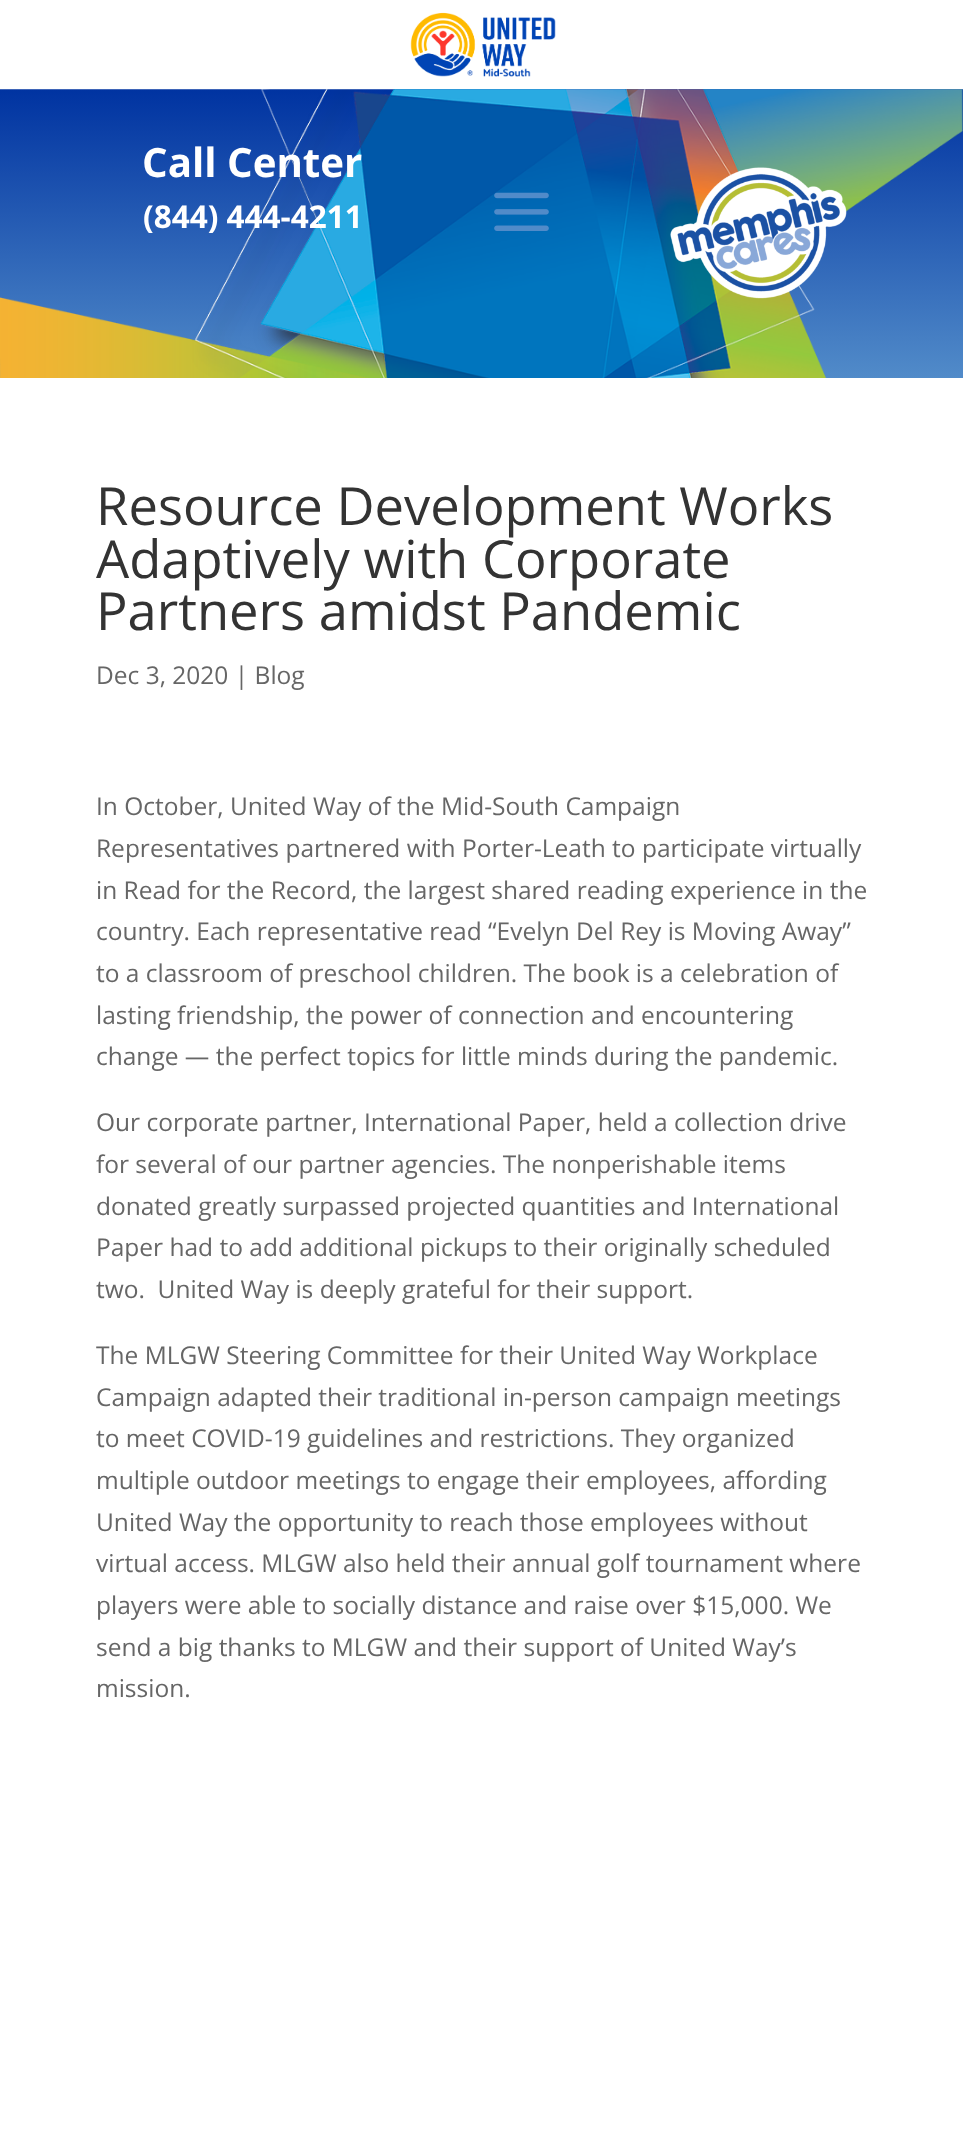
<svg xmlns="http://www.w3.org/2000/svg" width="963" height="2132">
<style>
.a{font:bold 40.25px Open Sans;fill:#fff}
.b{font:bold 31.5px Open Sans;fill:#fff}
.c{font:52.5px Open Sans;fill:#333}
.d{font:24.5px Open Sans;fill:#666}
</style>
<rect width="100%" height="100%" fill="#fff"/>
<image href="1.png" x="410" y="12" width="146" height="65"/>
<image href="2.png" x="0" y="89" width="963" height="289"/>
<image href="3.png" x="494" y="192" width="55" height="39"/>
<image href="4.png" x="670" y="167" width="177" height="132"/>
<text class="a" x="142" y="177">Call Center</text>
<text class="b" x="143" y="228">(844) 444-4211</text>
<text class="c" x="96" y="525">Resource Development Works</text>
<text class="c" x="96" y="578">Adaptively with Corporate</text>
<text class="c" x="96" y="630">Partners amidst Pandemic</text>
<text class="d" x="96" y="684">Dec 3, 2020 | Blog</text>
<text class="d" x="96" y="815">In October, United Way of the Mid-South Campaign</text>
<text class="d" x="96" y="857">Representatives partnered with Porter-Leath to participate virtually</text>
<text class="d" x="96" y="899">in Read for the Record, the largest shared reading experience in the</text>
<text class="d" x="96" y="940">country. Each representative read “Evelyn Del Rey is Moving Away”</text>
<text class="d" x="96" y="982">to a classroom of preschool children. The book is a celebration of</text>
<text class="d" x="96" y="1024">lasting friendship, the power of connection and encountering</text>
<text class="d" x="96" y="1065">change — the perfect topics for little minds during the pandemic.</text>
<text class="d" x="96" y="1131">Our corporate partner, International Paper, held a collection drive</text>
<text class="d" x="96" y="1173">for several of our partner agencies. The nonperishable items</text>
<text class="d" x="96" y="1215">donated greatly surpassed projected quantities and International</text>
<text class="d" x="96" y="1256">Paper had to add additional pickups to their originally scheduled</text>
<text class="d" xml:space="preserve" x="96" y="1298">two.  United Way is deeply grateful for their support.</text>
<text class="d" x="96" y="1364">The MLGW Steering Committee for their United Way Workplace</text>
<text class="d" x="96" y="1406">Campaign adapted their traditional in-person campaign meetings</text>
<text class="d" x="96" y="1447">to meet COVID-19 guidelines and restrictions. They organized</text>
<text class="d" x="96" y="1489">multiple outdoor meetings to engage their employees, affording</text>
<text class="d" x="96" y="1531">United Way the opportunity to reach those employees without</text>
<text class="d" x="96" y="1572">virtual access. MLGW also held their annual golf tournament where</text>
<text class="d" x="96" y="1614">players were able to socially distance and raise over $15,000. We</text>
<text class="d" x="96" y="1656">send a big thanks to MLGW and their support of United Way’s</text>
<text class="d" x="96" y="1697">mission.</text>
</svg>
